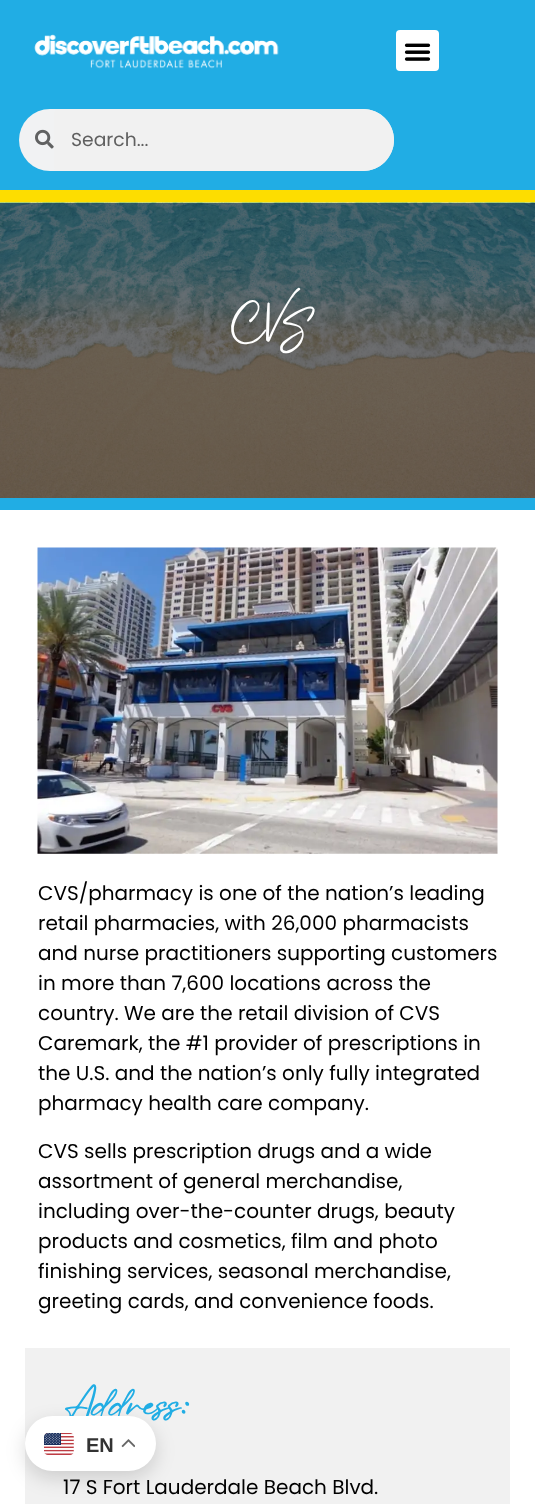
<svg xmlns="http://www.w3.org/2000/svg" width="535" height="1504">
<style>
.a{font:18.75px Poppins;fill:#606060}
.b{font:bold 37.5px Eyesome;fill:#fff}
.c{font:20px Poppins;fill:#000}
.d{font:bold 37.5px Eyesome;fill:#21ade4}
.e{font:bold 20px Liberation Sans;fill:#333}
</style>
<rect width="100%" height="100%" fill="#fff"/>
<path fill="#21ade4" d="M0 0h535v190H0z"/>
<path fill="#fddd00" d="M0 190h535v13H0z"/>
<image href="1.png" x="34" y="34" width="245" height="35"/>
<rect fill="#fff" x="396" y="30" width="43" height="41" rx="4"/>
<image href="2.png" x="404" y="43" width="27" height="18"/>
<rect fill="#f1f2f3" x="19" y="109" width="375" height="62" rx="31"/>
<image href="3.png" x="35" y="129" width="19" height="20"/>
<path fill="#f1f1f1" d="M58 109h305c17 0 31 14 31 31c0 17-14 31-31 31h-305c-2 0-4-2-4-4v-54c0-2 2-4 4-4z"/>
<image href="4.png" x="0" y="202" width="535" height="296"/>
<path fill="#21ade4" d="M0 498h535v12H0z"/>
<image href="5.png" x="37" y="547" width="461" height="307"/>
<path fill="#f1f1f1" d="M25 1348h485v156H25z"/>
<rect fill="#00000026" filter="blur(9.5px)" x="25" y="1423" width="131" height="55" rx="27.5"/>
<text class="a" x="71" y="146">Search...</text>
<text class="b" x="229" y="336">CVS</text>
<text class="c" x="38" y="900">CVS/pharmacy is one of the nation’s leading</text>
<text class="c" x="38" y="930">retail pharmacies, with 26,000 pharmacists</text>
<text class="c" x="38" y="960">and nurse practitioners supporting customers</text>
<text class="c" x="38" y="990">in more than 7,600 locations across the</text>
<text class="c" x="38" y="1020">country. We are the retail division of CVS</text>
<text class="c" x="38" y="1050">Caremark, the #1 provider of prescriptions in</text>
<text class="c" x="38" y="1080">the U.S. and the nation’s only fully integrated</text>
<text class="c" x="38" y="1110">pharmacy health care company.</text>
<text class="c" x="38" y="1158">CVS sells prescription drugs and a wide</text>
<text class="c" x="38" y="1188">assortment of general merchandise,</text>
<text class="c" x="38" y="1218">including over-the-counter drugs, beauty</text>
<text class="c" x="38" y="1248">products and cosmetics, film and photo</text>
<text class="c" x="38" y="1278">finishing services, seasonal merchandise,</text>
<text class="c" x="38" y="1308">greeting cards, and convenience foods.</text>
<text class="d" x="63" y="1415">Address:</text>
<text class="c" x="63" y="1494">17 S Fort Lauderdale Beach Blvd.</text>
<rect fill="#fff" x="25" y="1416" width="131" height="55" rx="27.5"/>
<image href="6.png" x="44" y="1433" width="30" height="22"/>
<text class="e" x="86" y="1452">EN</text>
<image href="7.png" x="121" y="1439" width="14" height="9"/>
</svg>
